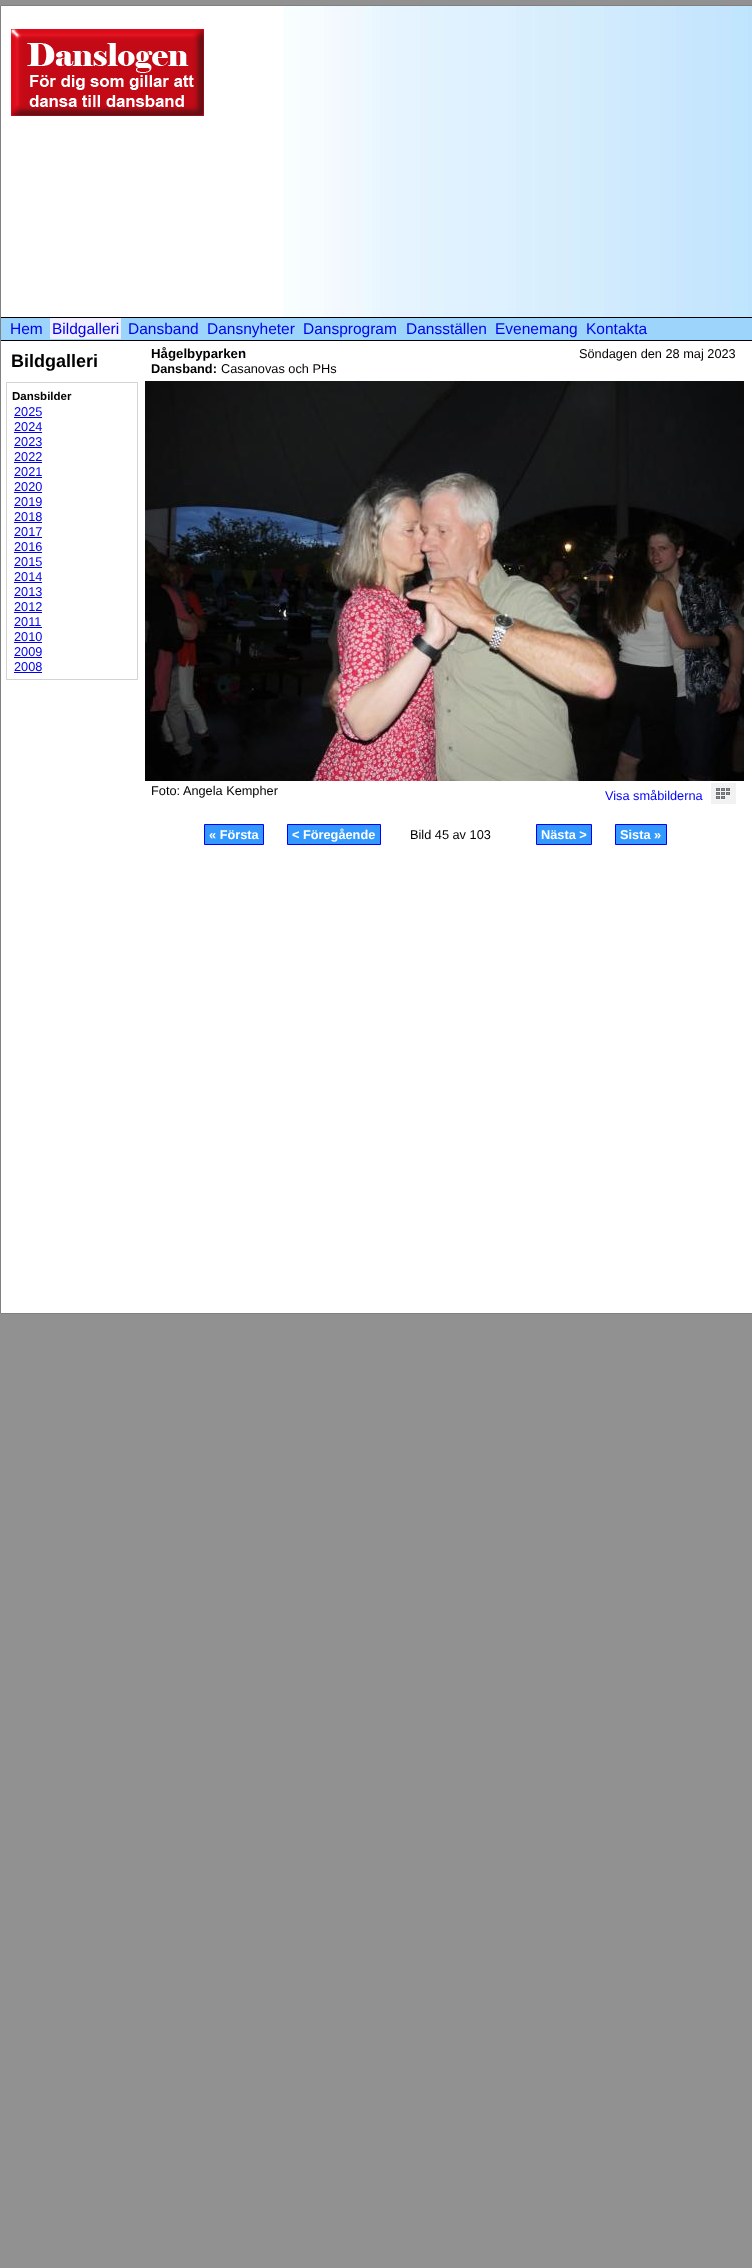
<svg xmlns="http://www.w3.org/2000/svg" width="752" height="2268">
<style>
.a{font:15.5px Liberation Sans;fill:#00e}
.b{font:bold 18px Liberation Sans;fill:#000}
.c{font:bold 11.5px Liberation Sans;fill:#000}
.d{font:12.75px Liberation Sans;fill:#00e}
.e{font:bold 13.25px Liberation Sans;fill:#000}
.f{font:12.75px Liberation Sans;fill:#000}
.g{font:bold 12.75px Liberation Sans;fill:#000}
.h{font:12.75px Liberation Sans;fill:#00f}
.i{font:bold 12.75px Liberation Sans;fill:#fff}
</style>
<rect width="100%" height="100%" fill="#919191"/>
<path fill="#fff" stroke="#808080" d="M0.5 5.5h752v1308H0.5z"/>
<image href="1.png" x="283" y="6" width="469" height="311"/>
<image href="2.png" x="11" y="29" width="193" height="87"/>
<path fill="#9cd4fb" d="M1 318h751v22H1z"/>
<path fill="#000" d="M1 317h751v1H1z"/>
<path fill="#000" d="M1 340h751v1H1z"/>
<path fill="#efefff" d="M50 318h71v21H50z"/>
<path fill="none" stroke="#d3d3d3" d="M6.5 382.5h131v297H6.5z"/>
<path fill="#00e" d="M14 417h28v1H14z"/>
<path fill="#00e" d="M14 432h28v1H14z"/>
<path fill="#00e" d="M14 447h28v1H14z"/>
<path fill="#00e" d="M14 462h28v1H14z"/>
<path fill="#00e" d="M14 477h28v1H14z"/>
<path fill="#00e" d="M14 492h28v1H14z"/>
<path fill="#00e" d="M14 507h28v1H14z"/>
<path fill="#00e" d="M14 522h28v1H14z"/>
<path fill="#00e" d="M14 537h28v1H14z"/>
<path fill="#00e" d="M14 552h28v1H14z"/>
<path fill="#00e" d="M14 567h28v1H14z"/>
<path fill="#00e" d="M14 582h28v1H14z"/>
<path fill="#00e" d="M14 597h28v1H14z"/>
<path fill="#00e" d="M14 612h28v1H14z"/>
<path fill="#00e" d="M14 627h28v1H14z"/>
<path fill="#00e" d="M14 642h28v1H14z"/>
<path fill="#00e" d="M14 657h28v1H14z"/>
<path fill="#00e" d="M14 672h28v1H14z"/>
<image href="3.png" x="145" y="381" width="599" height="400"/>
<image href="4.png" x="711" y="783" width="25" height="21"/>
<path fill="#39f" stroke="#00f" d="M204.5 824.5h59v20H204.5z"/>
<path fill="#39f" stroke="#00f" d="M287.5 824.5h93v20H287.5z"/>
<path fill="#39f" stroke="#00f" d="M536.5 824.5h55v20H536.5z"/>
<path fill="#39f" stroke="#00f" d="M615.5 824.5h51v20H615.5z"/>
<text class="a" x="10" y="334">Hem</text>
<text class="a" x="52" y="334">Bildgalleri</text>
<text class="a" x="128" y="334">Dansband</text>
<text class="a" x="207" y="334">Dansnyheter</text>
<text class="a" x="303" y="334">Dansprogram</text>
<text class="a" x="406" y="334">Dansställen</text>
<text class="a" x="495" y="334">Evenemang</text>
<text class="a" x="586" y="334">Kontakta</text>
<text class="b" x="11" y="367">Bildgalleri</text>
<text class="c" x="12" y="400">Dansbilder</text>
<text class="d" x="14" y="416">2025</text>
<text class="d" x="14" y="431">2024</text>
<text class="d" x="14" y="446">2023</text>
<text class="d" x="14" y="461">2022</text>
<text class="d" x="14" y="476">2021</text>
<text class="d" x="14" y="491">2020</text>
<text class="d" x="14" y="506">2019</text>
<text class="d" x="14" y="521">2018</text>
<text class="d" x="14" y="536">2017</text>
<text class="d" x="14" y="551">2016</text>
<text class="d" x="14" y="566">2015</text>
<text class="d" x="14" y="581">2014</text>
<text class="d" x="14" y="596">2013</text>
<text class="d" x="14" y="611">2012</text>
<text class="d" x="14" y="626">2011</text>
<text class="d" x="14" y="641">2010</text>
<text class="d" x="14" y="656">2009</text>
<text class="d" x="14" y="671">2008</text>
<text class="e" x="151" y="358">Hågelbyparken</text>
<text class="f" x="579" y="358">Söndagen den 28 maj 2023</text>
<text class="g" x="151" y="373">Dansband:</text>
<text class="f" x="221" y="373">Casanovas och PHs</text>
<text class="f" x="151" y="795">Foto: Angela Kempher</text>
<text class="h" x="605" y="800">Visa småbilderna</text>
<text class="i" x="209" y="839">« Första</text>
<text class="i" x="292" y="839">&lt; Föregående</text>
<text class="f" x="410" y="839">Bild 45 av 103</text>
<text class="i" x="541" y="839">Nästa &gt;</text>
<text class="i" x="620" y="839">Sista »</text>
</svg>
